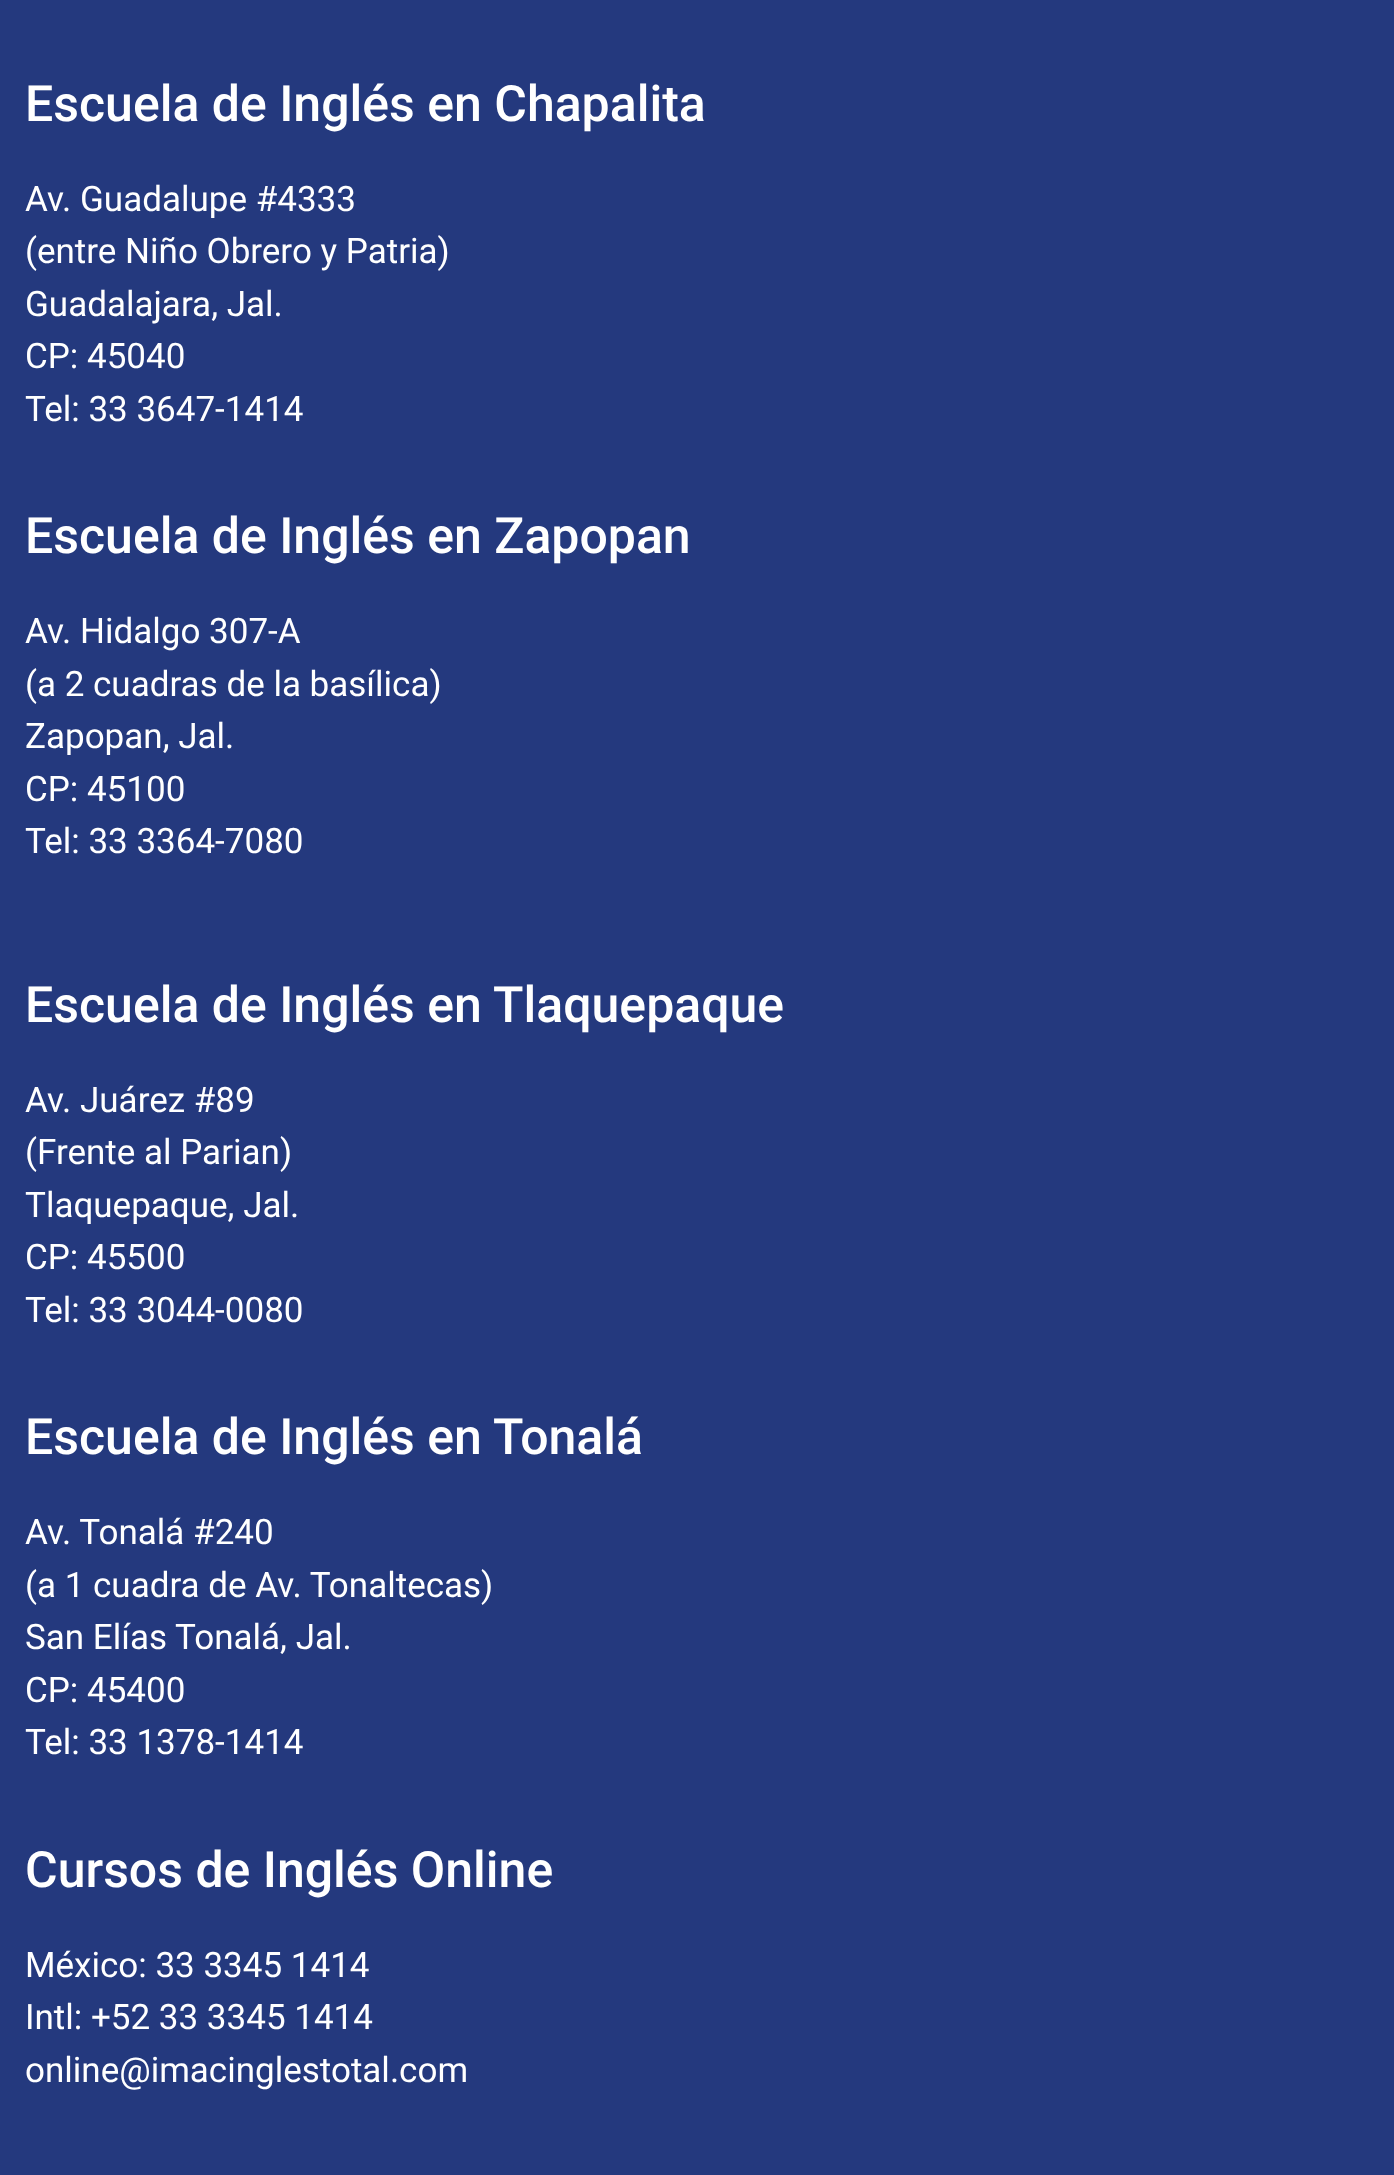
<svg xmlns="http://www.w3.org/2000/svg" width="1394" height="2175">
<style>
.a{font:500 50px Roboto;fill:#fff}
.b{font:35px Roboto;fill:#fff}
</style>
<rect width="100%" height="100%" fill="#24397e"/>
<text class="a" x="25" y="121">Escuela de Inglés en Chapalita</text>
<text class="b" x="25" y="211">Av. Guadalupe #4333</text>
<text class="b" x="25" y="263">(entre Niño Obrero y Patria)</text>
<text class="b" x="25" y="316">Guadalajara, Jal.</text>
<text class="b" x="25" y="368">CP: 45040</text>
<text class="b" x="25" y="421">Tel: 33 3647-1414</text>
<text class="a" x="25" y="553">Escuela de Inglés en Zapopan</text>
<text class="b" x="25" y="643">Av. Hidalgo 307-A</text>
<text class="b" x="25" y="696">(a 2 cuadras de la basílica)</text>
<text class="b" x="25" y="748">Zapopan, Jal.</text>
<text class="b" x="25" y="801">CP: 45100</text>
<text class="b" x="25" y="853">Tel: 33 3364-7080</text>
<text class="a" x="25" y="1022">Escuela de Inglés en Tlaquepaque</text>
<text class="b" x="25" y="1112">Av. Juárez #89</text>
<text class="b" x="25" y="1164">(Frente al Parian)</text>
<text class="b" x="25" y="1217">Tlaquepaque, Jal.</text>
<text class="b" x="25" y="1269">CP: 45500</text>
<text class="b" x="25" y="1322">Tel: 33 3044-0080</text>
<text class="a" x="25" y="1454">Escuela de Inglés en Tonalá</text>
<text class="b" x="25" y="1544">Av. Tonalá #240</text>
<text class="b" x="25" y="1597">(a 1 cuadra de Av. Tonaltecas)</text>
<text class="b" x="25" y="1649">San Elías Tonalá, Jal.</text>
<text class="b" x="25" y="1702">CP: 45400</text>
<text class="b" x="25" y="1754">Tel: 33 1378-1414</text>
<text class="a" x="25" y="1887">Cursos de Inglés Online</text>
<text class="b" x="25" y="1977">México: 33 3345 1414</text>
<text class="b" x="25" y="2029">Intl: +52 33 3345 1414</text>
<text class="b" x="25" y="2082">online@imacinglestotal.com</text>
</svg>
